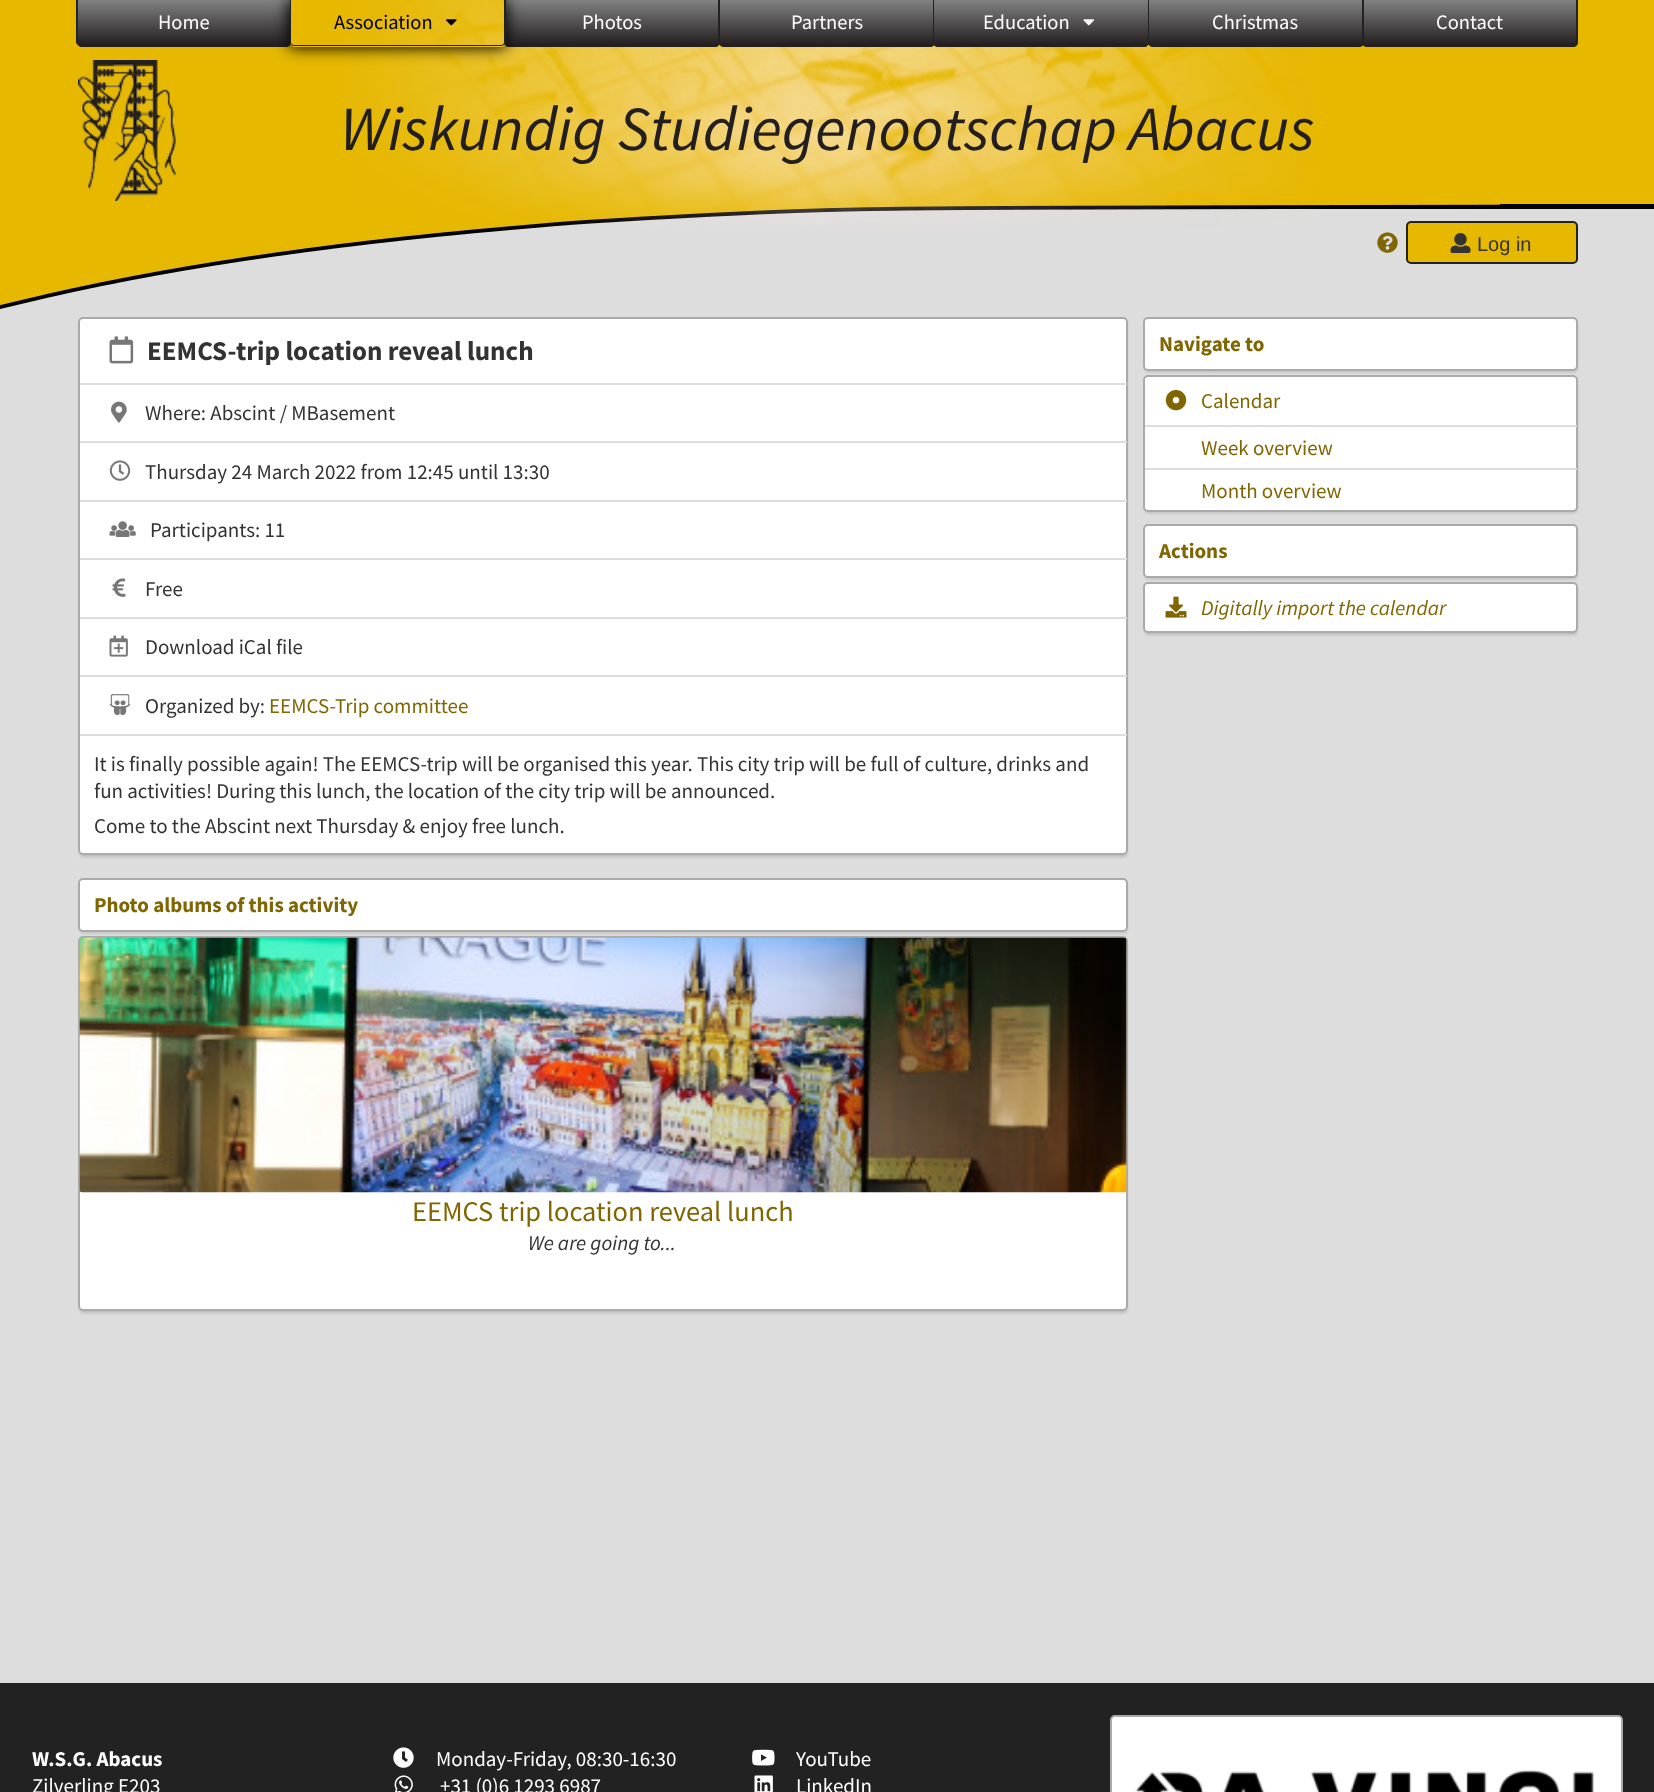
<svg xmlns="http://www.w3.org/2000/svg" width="1654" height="1792">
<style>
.a{font:20.5px Source Sans Pro;fill:#fff}
.b{font:20.5px Source Sans Pro;fill:#000}
.c{font:italic 63px Source Sans Pro;fill:#231f20}
.d{font:20px Liberation Sans;fill:#333}
.e{font:bold 27px Source Sans Pro;fill:#333}
.f{font:21px Source Sans Pro;fill:#333}
.g{font:21px Source Sans Pro;fill:#806600}
.h{font:bold 21px Source Sans Pro;fill:#806600}
.i{font:28.4px Source Sans Pro;fill:#806600}
.j{font:italic 21px Source Sans Pro;fill:#333}
.k{font:italic 21px Source Sans Pro;fill:#806600}
.l{font:bold 21px Source Sans Pro;fill:#fff}
.m{font:21px Source Sans Pro;fill:#fff}
</style>
<defs>
<clipPath id="clip1"><path d="M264 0h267v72h-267zm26 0h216v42c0 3-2 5-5 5h-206c-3 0-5-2-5-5z" clip-rule="evenodd"/></clipPath>
</defs>
<rect width="100%" height="100%" fill="#ddd"/>
<path fill="#e6b800" d="M0 0h1654v204H0z"/>
<path fill="#000" d="M1298 204h356v5H1298z"/>
<image href="1.png" x="0" y="204" width="1500" height="105"/>
<path fill="#231f20" d="M77 0h214v42c0 3-2 5-5 5h-204c-3 0-5-2-5-5z"/>
<image href="2.png" x="78" y="0" width="213" height="44"/>
<path fill="#222" fill-rule="evenodd" d="M76 0h215v42c0 2-2 4-5 4h-205c-2 0-5-2-5-4zm2 0h212v42c0 2-2 3-4 3h-205c-2 0-3-1-3-3z"/>
<image href="11.png" x="346" y="0" width="969" height="228"/>
<path fill="#231f20" d="M504 0h216v42c0 3-2 5-5 5h-206c-3 0-5-2-5-5z"/>
<image href="4.png" x="506" y="0" width="212" height="44"/>
<path fill="#222" fill-rule="evenodd" d="M504 0h216v42c0 2-2 4-4 4h-208c-2 0-4-2-4-4zm2 0h212v42c0 2-1 3-2 3h-208c-1 0-2-1-2-3z"/>
<g clip-path="url(#clip1)">
<rect fill="#000" filter="blur(7.5px)" x="288" y="-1" width="219" height="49" rx="6"/>
</g>
<path fill="#222" fill-rule="evenodd" d="M290 0h216v42c0 2-3 4-5 4h-207c-2 0-4-2-4-4zm1 0h213v42c0 2-1 3-3 3h-207c-2 0-3-1-3-3z"/>
<image href="3.png" x="446" y="19" width="11" height="7"/>
<path fill="#231f20" d="M719 0h216v42c0 3-2 5-5 5h-206c-3 0-5-2-5-5z"/>
<image href="5.png" x="720" y="0" width="214" height="44"/>
<path fill="#222" fill-rule="evenodd" d="M718 0h216v42c0 2-2 4-4 4h-207c-2 0-5-2-5-4zm2 0h213v42c0 2-1 3-3 3h-207c-2 0-3-1-3-3z"/>
<path fill="#231f20" d="M1148 0h216v42c0 3-2 5-5 5h-206c-3 0-5-2-5-5z"/>
<image href="8.png" x="1148" y="0" width="214" height="44"/>
<path fill="#222" fill-rule="evenodd" d="M1148 0h216v42c0 2-3 4-5 4h-207c-2 0-4-2-4-4zm1 0h213v42c0 2-1 3-3 3h-207c-2 0-3-1-3-3z"/>
<path fill="#231f20" d="M933 0h216v42c0 3-2 5-5 5h-206c-3 0-5-2-5-5z"/>
<image href="6.png" x="933" y="0" width="216" height="44"/>
<path fill="#222" fill-rule="evenodd" d="M933 0h216v42c0 2-2 4-5 4h-206c-3 0-5-2-5-4zm1 0h214v42c0 2-2 3-4 3h-206c-2 0-4-1-4-3z"/>
<image href="7.png" x="1083" y="19" width="12" height="7"/>
<path fill="#231f20" d="M1362 0h216v42c0 3-2 5-5 5h-206c-3 0-5-2-5-5z"/>
<image href="9.png" x="1362" y="0" width="216" height="44"/>
<path fill="#222" fill-rule="evenodd" d="M1362 0h216v42c0 2-2 4-4 4h-208c-2 0-4-2-4-4zm2 0h212v42c0 2-1 3-2 3h-208c-1 0-2-1-2-3z"/>
<image href="10.png" x="78" y="60" width="98" height="141"/>
<image href="12.png" x="1377" y="232" width="21" height="21"/>
<rect fill="#e6b800" stroke="#222" stroke-width="2" x="1407" y="222" width="170" height="41" rx="4"/>
<image href="13.png" x="1450" y="233" width="21" height="20"/>
<rect fill="#00000026" filter="blur(1.5px)" x="80" y="321" width="1047" height="536" rx="3"/>
<rect fill="#fff" stroke="#aaa" stroke-width="2" x="79" y="318" width="1048" height="536" rx="4"/>
<image href="14.png" x="109" y="336" width="25" height="28"/>
<path fill="#ddd" d="M80 383h1047v2H80z"/>
<image href="15.png" x="111" y="401" width="16" height="22"/>
<path fill="#ddd" d="M80 441h1047v2H80z"/>
<image href="16.png" x="109" y="460" width="22" height="21"/>
<path fill="#ddd" d="M80 500h1047v2H80z"/>
<image href="17.png" x="109" y="521" width="27" height="16"/>
<path fill="#ddd" d="M80 558h1047v2H80z"/>
<image href="18.png" x="112" y="578" width="14" height="19"/>
<path fill="#ddd" d="M80 617h1047v2H80z"/>
<image href="19.png" x="109" y="635" width="19" height="22"/>
<path fill="#ddd" d="M80 675h1047v2H80z"/>
<image href="20.png" x="109" y="694" width="22" height="22"/>
<path fill="#ddd" d="M80 734h1047v2H80z"/>
<rect fill="#00000026" filter="blur(1.5px)" x="80" y="882" width="1047" height="51" rx="3"/>
<rect fill="#fff" stroke="#aaa" stroke-width="2" x="79" y="879" width="1048" height="52" rx="4"/>
<rect fill="#00000026" filter="blur(1.5px)" x="80" y="941" width="1047" height="372" rx="3"/>
<rect fill="#fff" stroke="#aaa" stroke-width="2" x="79" y="937" width="1048" height="373" rx="4"/>
<image href="21.png" x="79" y="937" width="1048" height="256"/>
<rect fill="#00000026" filter="blur(1.5px)" x="1145" y="321" width="432" height="51" rx="3"/>
<rect fill="#fff" stroke="#aaa" stroke-width="2" x="1144" y="318" width="433" height="52" rx="4"/>
<rect fill="#00000026" filter="blur(1.5px)" x="1145" y="380" width="432" height="133" rx="3"/>
<rect fill="#fff" stroke="#aaa" stroke-width="2" x="1144" y="376" width="433" height="135" rx="4"/>
<image href="22.png" x="1165" y="390" width="22" height="21"/>
<path fill="#ddd" d="M1145 425h432v2H1145z"/>
<path fill="#ddd" d="M1145 468h432v2H1145z"/>
<rect fill="#00000026" filter="blur(1.5px)" x="1145" y="528" width="432" height="51" rx="3"/>
<rect fill="#fff" stroke="#aaa" stroke-width="2" x="1144" y="525" width="433" height="52" rx="4"/>
<rect fill="#00000026" filter="blur(1.5px)" x="1145" y="587" width="432" height="48" rx="3"/>
<rect fill="#fff" stroke="#aaa" stroke-width="2" x="1144" y="583" width="433" height="49" rx="4"/>
<image href="23.png" x="1165" y="596" width="22" height="22"/>
<path fill="#222" d="M0 1683h1654v109H0z"/>
<image href="24.png" x="393" y="1747" width="21" height="21"/>
<image href="25.png" x="394" y="1775" width="19" height="17"/>
<image href="26.png" x="752" y="1749" width="23" height="17"/>
<image href="27.png" x="754" y="1775" width="19" height="17"/>
<rect fill="#fff" stroke="#aaa" stroke-width="2" x="1111" y="1716" width="511" height="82" rx="4"/>
<image href="28.png" x="1135" y="1770" width="460" height="22"/>
<text class="a" x="158" y="29">Home</text>
<text class="b" x="334" y="29">Association</text>
<text class="a" x="582" y="29">Photos</text>
<text class="a" x="791" y="29">Partners</text>
<text class="a" x="983" y="29">Education</text>
<text class="a" x="1212" y="29">Christmas</text>
<text class="a" x="1436" y="29">Contact</text>
<text class="c" x="340" y="150">Wiskundig Studiegenootschap Abacus</text>
<text class="d" x="1477" y="251">Log in</text>
<text class="e" x="147" y="360">EEMCS-trip location reveal lunch</text>
<text class="f" x="145" y="420">Where: Abscint / MBasement</text>
<text class="f" x="145" y="479">Thursday 24 March 2022 from 12:45 until 13:30</text>
<text class="f" x="150" y="537">Participants: 11</text>
<text class="f" x="145" y="596">Free</text>
<text class="f" x="145" y="654">Download iCal file</text>
<text class="f" x="145" y="713">Organized by:</text>
<text class="g" x="269" y="713">EEMCS-Trip committee</text>
<text class="f" x="94" y="771">It is finally possible again! The EEMCS-trip will be organised this year. This city trip will be full of culture, drinks and</text>
<text class="f" x="94" y="798">fun activities! During this lunch, the location of the city trip will be announced.</text>
<text class="f" x="94" y="833">Come to the Abscint next Thursday &amp; enjoy free lunch.</text>
<text class="h" x="94" y="912">Photo albums of this activity</text>
<text class="i" x="412" y="1221">EEMCS trip location reveal lunch</text>
<text class="j" x="528" y="1250">We are going to...</text>
<text class="h" x="1159" y="351">Navigate to</text>
<text class="g" x="1201" y="408">Calendar</text>
<text class="g" x="1201" y="455">Week overview</text>
<text class="g" x="1201" y="498">Month overview</text>
<text class="h" x="1159" y="558">Actions</text>
<text class="k" x="1201" y="615">Digitally import the calendar</text>
<text class="l" x="32" y="1766">W.S.G. Abacus</text>
<text class="m" x="32" y="1793">Zilverling E203</text>
<text class="m" x="436" y="1766">Monday-Friday, 08:30-16:30</text>
<text class="m" x="440" y="1793">+31 (0)6 1293 6987</text>
<text class="m" x="796" y="1766">YouTube</text>
<text class="m" x="796" y="1793">LinkedIn</text>
</svg>
